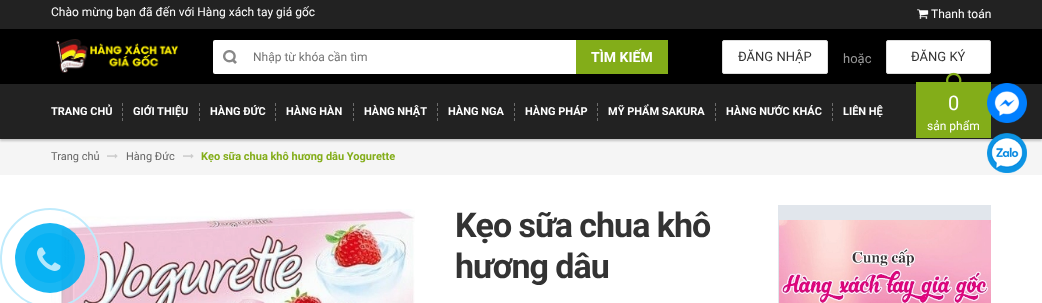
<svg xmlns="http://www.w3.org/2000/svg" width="1042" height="303">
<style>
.a{font:12px Roboto;fill:#fff}
.b{font:12px Roboto;fill:#757575}
.c{font:bold 14px Roboto;fill:#fff}
.d{font:13px Roboto;fill:#333}
.e{font:13px Roboto;fill:#999}
.f{font:bold 11px Roboto;fill:#fff}
.g{font:20px Roboto;fill:#fff}
.h{font:11px Roboto;fill:#666}
.i{font:bold 11px Roboto;fill:#83ad19}
.j{font:bold 34px Roboto;letter-spacing:-1px;fill:#333}
</style>
<rect width="100%" height="100%" fill="#fff"/>
<path fill="#000" d="M0 29h1042v54H0z"/>
<path fill="#222" d="M0 0h1042v29H0z"/>
<image href="1.png" x="917" y="9" width="12" height="10"/>
<image href="2.png" x="56" y="39" width="122" height="34"/>
<rect fill="#fff" x="213" y="40" width="455" height="34" rx="2"/>
<image href="3.png" x="223" y="50" width="14" height="14"/>
<path fill="#83ad19" d="M576 40h92v34H576z"/>
<rect fill="#fff" stroke="#ddd" x="722.5" y="40.5" width="105" height="33" rx="1.5"/>
<rect fill="#fff" stroke="#ddd" x="886.5" y="40.5" width="104" height="33" rx="1.5"/>
<path fill="#f5f5f5" d="M0 139h1042v36H0z"/>
<path fill="#00000033" filter="blur(1px)" d="M0 85h1042v56H0z"/>
<path fill="#000" d="M0 83h1042v1H0z"/>
<path fill="#222" d="M0 84h1042v55H0z"/>
<path fill="none" stroke="#6d6d6d" stroke-dasharray="3 2" d="M122.5 103v18"/>
<path fill="none" stroke="#6d6d6d" stroke-dasharray="3 2" d="M199.5 103v18"/>
<path fill="none" stroke="#6d6d6d" stroke-dasharray="3 2" d="M275.5 103v18"/>
<path fill="none" stroke="#6d6d6d" stroke-dasharray="3 2" d="M353.5 103v18"/>
<path fill="none" stroke="#6d6d6d" stroke-dasharray="3 2" d="M437.5 103v18"/>
<path fill="none" stroke="#6d6d6d" stroke-dasharray="3 2" d="M514.5 103v18"/>
<path fill="none" stroke="#6d6d6d" stroke-dasharray="3 2" d="M597.5 103v18"/>
<path fill="none" stroke="#6d6d6d" stroke-dasharray="3 2" d="M715.5 103v18"/>
<path fill="none" stroke="#6d6d6d" stroke-dasharray="3 2" d="M832.5 103v18"/>
<path fill="#83ad19" d="M916 82h75v56H916z"/>
<image href="4.png" x="946" y="72" width="16" height="10"/>
<image href="5.png" x="987" y="83" width="40" height="40"/>
<image href="6.png" x="987" y="133" width="40" height="40"/>
<image href="7.png" x="107" y="154" width="11" height="5"/>
<image href="7.png" x="183" y="154" width="11" height="5"/>
<image href="9.png" x="51" y="209" width="364" height="94"/>
<circle fill="none" stroke="#bfebfc" stroke-width="2" cx="50" cy="258" r="49"/>
<circle fill="#00aff2e6" cx="50" cy="258" r="35"/>
<circle fill="#00aff2b3" cx="50" cy="258" r="25"/>
<image href="8.png" x="37" y="247" width="24" height="24"/>
<path fill="#e1e6ec" d="M778 205h213v98H778z"/>
<image href="10.png" x="779" y="220" width="212" height="83"/>
<text class="a" x="51" y="16">Chào mừng bạn đã đến với Hàng xách tay giá gốc</text>
<text class="a" x="931" y="18">Thanh toán</text>
<text class="b" x="253" y="61">Nhập từ khóa cần tìm</text>
<text class="c" x="591" y="62">TÌM KIẾM</text>
<text class="d" x="738" y="61">ĐĂNG NHẬP</text>
<text class="e" x="843" y="63">hoặc</text>
<text class="d" x="911" y="61">ĐĂNG KÝ</text>
<text class="f" x="51" y="115">TRANG CHỦ</text>
<text class="f" x="133" y="115">GIỚI THIỆU</text>
<text class="f" x="210" y="115">HÀNG ĐỨC</text>
<text class="f" x="286" y="115">HÀNG HÀN</text>
<text class="f" x="364" y="115">HÀNG NHẬT</text>
<text class="f" x="448" y="115">HÀNG NGA</text>
<text class="f" x="525" y="115">HÀNG PHÁP</text>
<text class="f" x="608" y="115">MỸ PHẨM SAKURA</text>
<text class="f" x="726" y="115">HÀNG NƯỚC KHÁC</text>
<text class="f" x="843" y="115">LIÊN HỆ</text>
<text class="g" x="948" y="110">0</text>
<text class="a" x="927" y="130">sản phẩm</text>
<text class="h" x="51" y="160">Trang chủ</text>
<text class="h" x="126" y="160">Hàng Đức</text>
<text class="i" x="201" y="160">Kẹo sữa chua khô hương dâu Yogurette</text>
<text class="j" x="455" y="237">Kẹo sữa chua khô</text>
<text class="j" x="455" y="278">hương dâu</text>
</svg>
